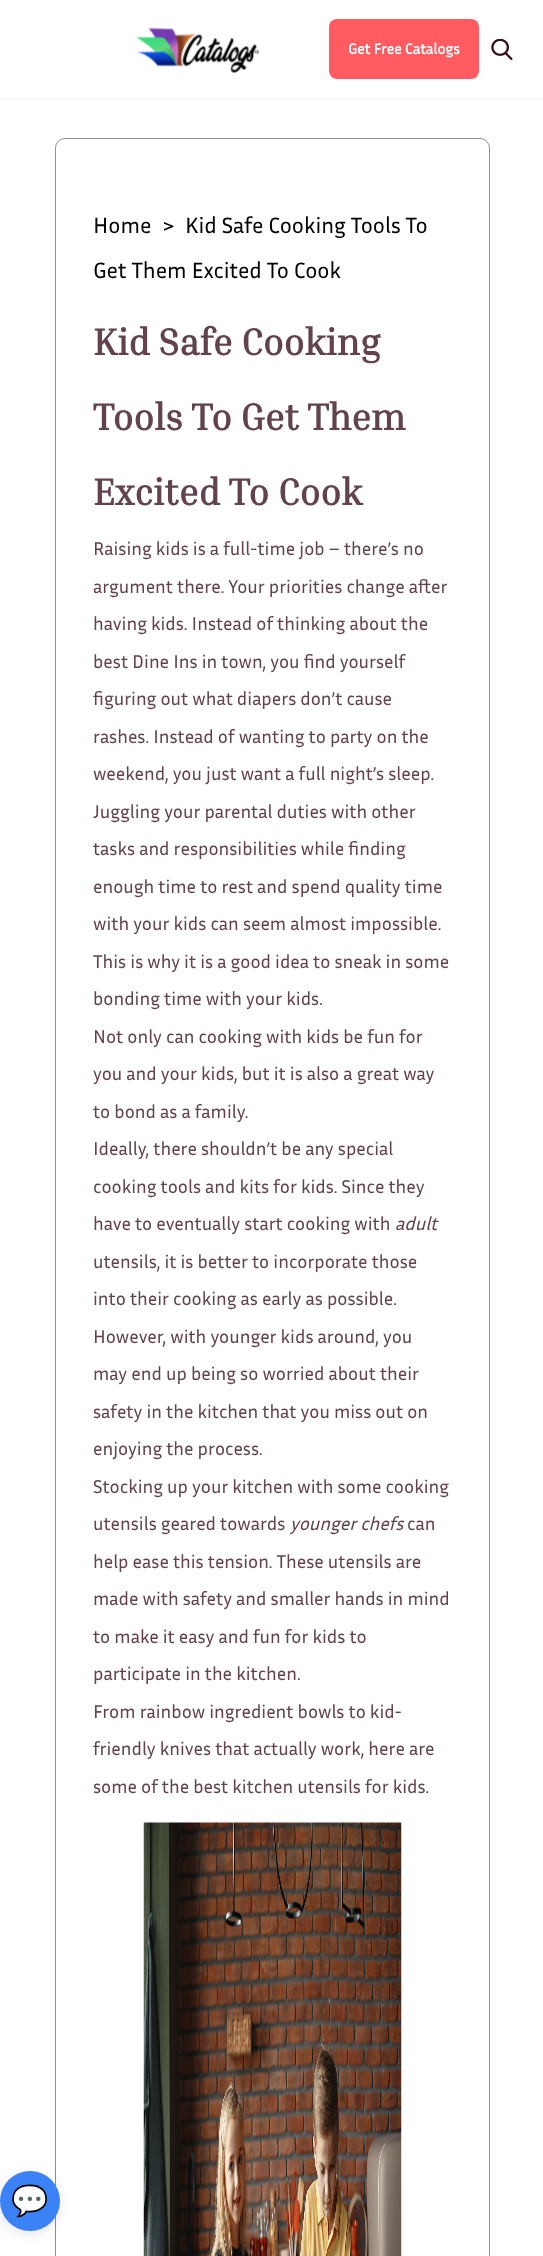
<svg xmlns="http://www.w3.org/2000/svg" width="543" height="2256">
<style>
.a{font:bold 15px Inria Sans;fill:#fff}
.b{font:22.5px Inria Sans;fill:#000}
.c{font:bold 37.5px Inria Serif;fill:#61424e}
.d{font:18.75px Inria Sans;fill:#61424e}
.e{font:italic 18.75px Inria Sans;fill:#61424e}
.f{font:30px Noto Color Emoji;fill:#fff}
</style>
<rect width="100%" height="100%" fill="#fff"/>
<path fill="#0000000f" filter="blur(1px)" d="M0 1h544v98H0z"/>
<path fill="#fff" d="M0 0h543v98H0z"/>
<image href="1.png" x="136" y="27" width="124" height="46"/>
<rect fill="#ff5b60" x="329" y="19" width="150" height="60" rx="8"/>
<image href="2.png" x="491" y="39" width="22" height="21"/>
<rect fill="none" stroke="#909090" x="55.5" y="138.5" width="434" height="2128" rx="9.5"/>
<image href="3.png" x="143" y="1822" width="259" height="434"/>
<rect fill="#0000001a" filter="blur(6px)" y="2174" width="60" height="60" rx="30"/>
<circle fill="#3b82f6" cx="30" cy="2201" r="30"/>
<text class="a" x="348" y="54">Get Free Catalogs</text>
<text class="b" x="93" y="233">Home</text>
<text class="b" x="162" y="233">&gt;</text>
<text class="b" x="185" y="233">Kid Safe Cooking Tools To</text>
<text class="b" x="93" y="278">Get Them Excited To Cook</text>
<text class="c" x="93" y="355">Kid Safe Cooking</text>
<text class="c" x="93" y="430">Tools To Get Them</text>
<text class="c" x="93" y="505">Excited To Cook</text>
<text class="d" x="93" y="555">Raising kids is a full-time job – there’s no</text>
<text class="d" x="93" y="593">argument there. Your priorities change after</text>
<text class="d" x="93" y="630">having kids. Instead of thinking about the</text>
<text class="d" x="93" y="668">best Dine Ins in town, you find yourself</text>
<text class="d" x="93" y="705">figuring out what diapers don’t cause</text>
<text class="d" x="93" y="743">rashes. Instead of wanting to party on the</text>
<text class="d" x="93" y="780">weekend, you just want a full night’s sleep.</text>
<text class="d" x="93" y="818">Juggling your parental duties with other</text>
<text class="d" x="93" y="855">tasks and responsibilities while finding</text>
<text class="d" x="93" y="893">enough time to rest and spend quality time</text>
<text class="d" x="93" y="930">with your kids can seem almost impossible.</text>
<text class="d" x="93" y="968">This is why it is a good idea to sneak in some</text>
<text class="d" x="93" y="1005">bonding time with your kids.</text>
<text class="d" x="93" y="1043">Not only can cooking with kids be fun for</text>
<text class="d" x="93" y="1080">you and your kids, but it is also a great way</text>
<text class="d" x="93" y="1118">to bond as a family.</text>
<text class="d" x="93" y="1155">Ideally, there shouldn’t be any special</text>
<text class="d" x="93" y="1193">cooking tools and kits for kids. Since they</text>
<text class="d" x="93" y="1230">have to eventually start cooking with</text>
<text class="e" x="395" y="1230">adult</text>
<text class="d" x="93" y="1268">utensils, it is better to incorporate those</text>
<text class="d" x="93" y="1305">into their cooking as early as possible.</text>
<text class="d" x="93" y="1343">However, with younger kids around, you</text>
<text class="d" x="93" y="1380">may end up being so worried about their</text>
<text class="d" x="93" y="1418">safety in the kitchen that you miss out on</text>
<text class="d" x="93" y="1455">enjoying the process.</text>
<text class="d" x="93" y="1493">Stocking up your kitchen with some cooking</text>
<text class="d" x="93" y="1530">utensils geared towards</text>
<text class="e" x="290" y="1530">younger chefs</text>
<text class="d" x="407" y="1530">can</text>
<text class="d" x="93" y="1568">help ease this tension. These utensils are</text>
<text class="d" x="93" y="1605">made with safety and smaller hands in mind</text>
<text class="d" x="93" y="1643">to make it easy and fun for kids to</text>
<text class="d" x="93" y="1680">participate in the kitchen.</text>
<text class="d" x="93" y="1718">From rainbow ingredient bowls to kid-</text>
<text class="d" x="93" y="1755">friendly knives that actually work, here are</text>
<text class="d" x="93" y="1793">some of the best kitchen utensils for kids.</text>
<text class="f" x="11" y="2211">💬</text>
</svg>
